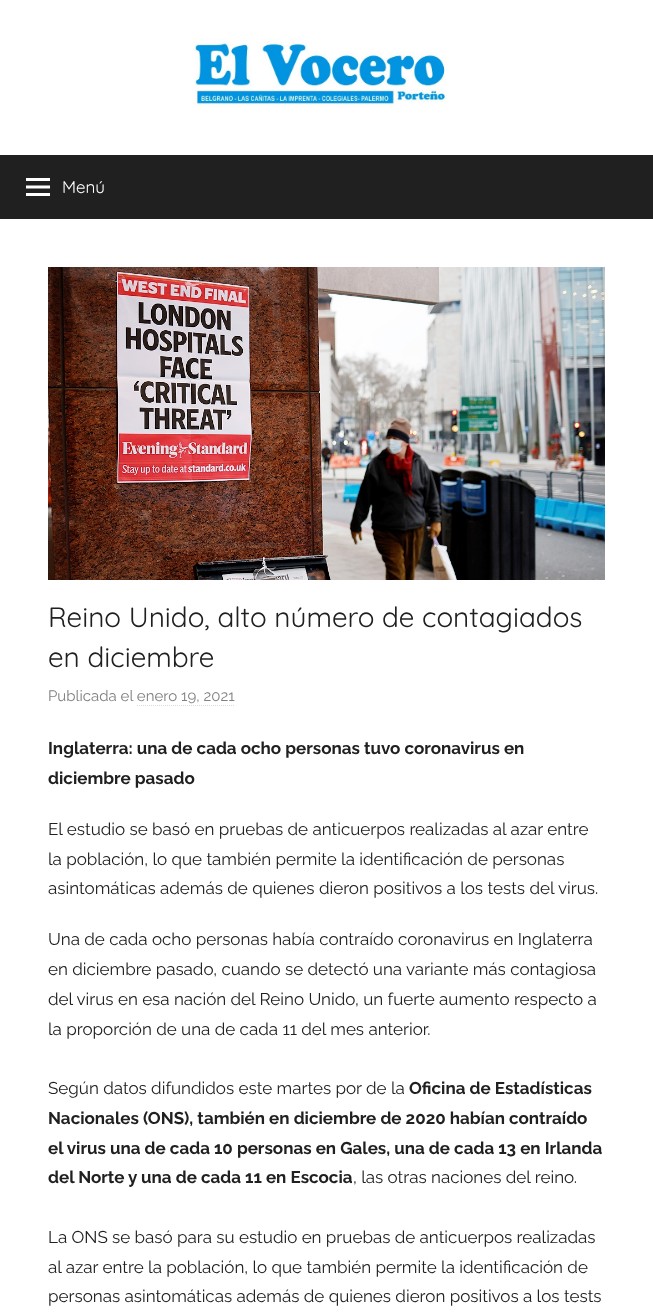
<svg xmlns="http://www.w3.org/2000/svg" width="653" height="1315">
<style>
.a{font:300 17px Quicksand;fill:#fff}
.b{font:300 28px Quicksand;fill:#202020}
.c{font:100 15px Raleway;fill:#808080}
.d{font:100 17px 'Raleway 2';fill:#202020}
.e{font:100 17px Raleway;fill:#202020}
</style>
<rect width="100%" height="100%" fill="#fff"/>
<image href="1.png" x="194" y="39" width="253" height="69"/>
<path fill="#202020" d="M0 155h653v64H0z"/>
<image href="2.png" x="26" y="178" width="24" height="18"/>
<image href="3.png" x="48" y="267" width="557" height="313"/>
<path fill="none" stroke="#d9d9d9" stroke-dasharray="1 1" d="M137 705.5h98"/>
<text class="a" x="62" y="193">Menú</text>
<text class="b" x="48" y="627">Reino Unido, alto número de contagiados</text>
<text class="b" x="48" y="667">en diciembre</text>
<text class="c" x="48" y="701">Publicada el enero 19, 2021</text>
<text class="d" x="48" y="754">Inglaterra: una de cada ocho personas tuvo coronavirus en</text>
<text class="d" x="48" y="784">diciembre pasado</text>
<text class="e" x="48" y="835">El estudio se basó en pruebas de anticuerpos realizadas al azar entre</text>
<text class="e" x="48" y="865">la población, lo que también permite la identificación de personas</text>
<text class="e" x="48" y="894">asintomáticas además de quienes dieron positivos a los tests del virus.</text>
<text class="e" x="48" y="945">Una de cada ocho personas había contraído coronavirus en Inglaterra</text>
<text class="e" x="48" y="975">en diciembre pasado, cuando se detectó una variante más contagiosa</text>
<text class="e" x="48" y="1005">del virus en esa nación del Reino Unido, un fuerte aumento respecto a</text>
<text class="e" x="48" y="1035">la proporción de una de cada 11 del mes anterior.</text>
<text class="e" x="48" y="1094">Según datos difundidos este martes por de la</text>
<text class="d" x="409" y="1094">Oficina de Estadísticas</text>
<text class="d" x="48" y="1124">Nacionales (ONS), también en diciembre de 2020 habían contraído</text>
<text class="d" x="48" y="1154">el virus una de cada 10 personas en Gales, una de cada 13 en Irlanda</text>
<text class="d" x="48" y="1183">del Norte y una de cada 11 en Escocia</text>
<text class="e" x="353" y="1183">, las otras naciones del reino.</text>
<text class="e" x="48" y="1243">La ONS se basó para su estudio en pruebas de anticuerpos realizadas</text>
<text class="e" x="48" y="1273">al azar entre la población, lo que también permite la identificación de</text>
<text class="e" x="48" y="1302">personas asintomáticas además de quienes dieron positivos a los tests</text>
</svg>
